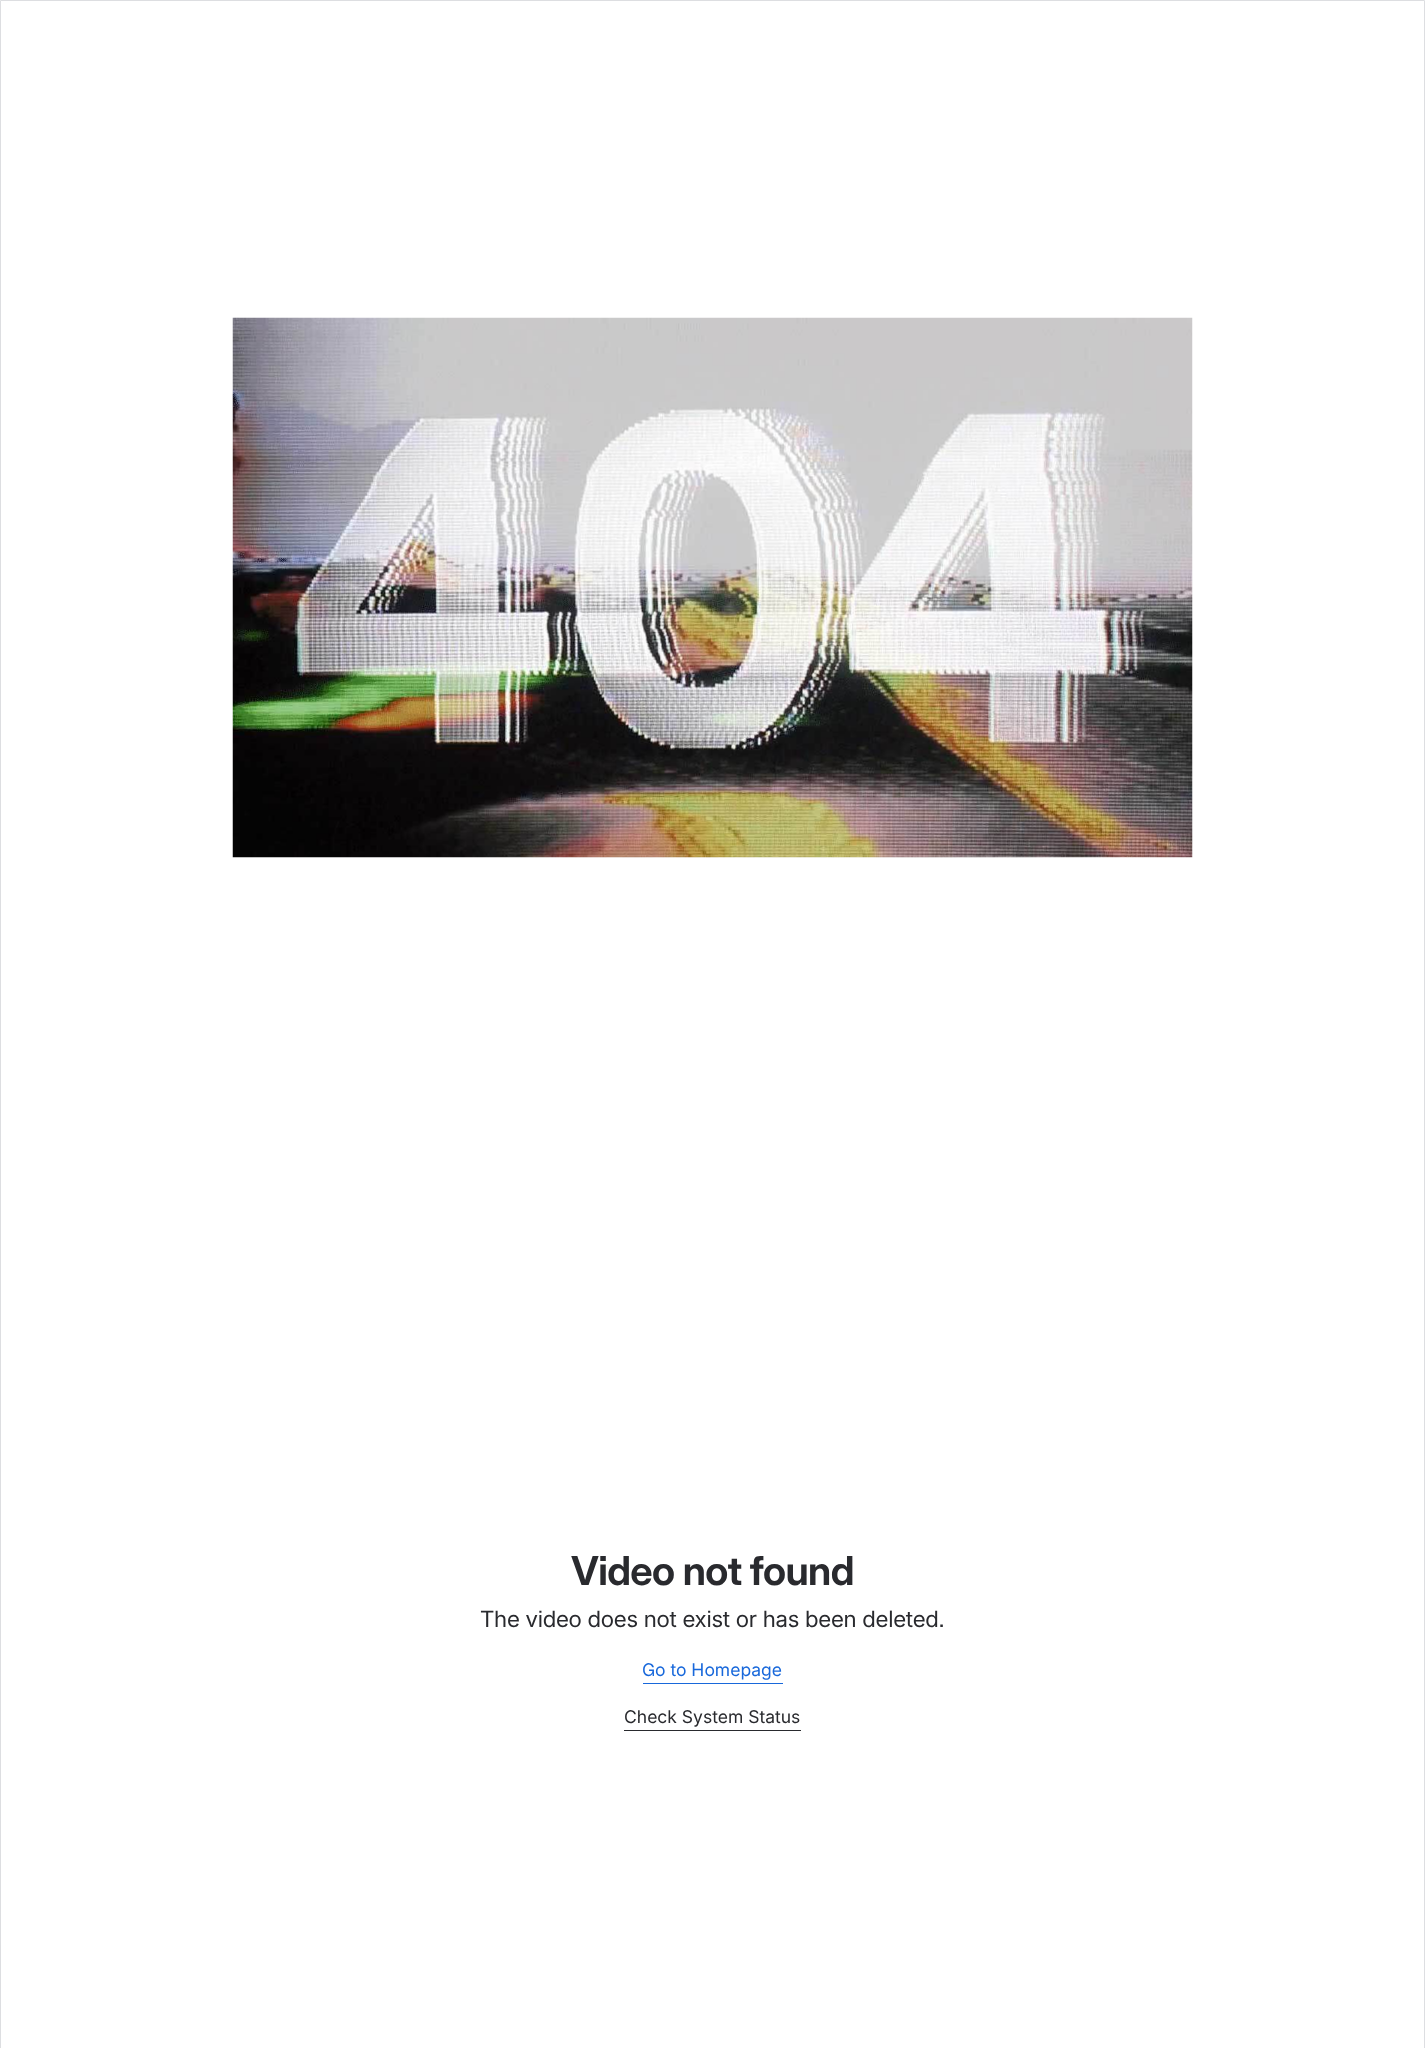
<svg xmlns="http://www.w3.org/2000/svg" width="1425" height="2048">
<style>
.a{font:bold 40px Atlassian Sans;letter-spacing:-0.6px;fill:#292a2e}
.b{font:22.5px Atlassian Sans;letter-spacing:-0.25px;fill:#292a2e}
.c{font:17.5px 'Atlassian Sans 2';fill:#1868db}
.d{font:17.5px 'Atlassian Sans 2';fill:#292a2e}
</style>
<rect width="100%" height="100%" fill="#fff"/>
<path fill="none" stroke="#dddee1" d="M0.5 0.5h1424v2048H0.5z"/>
<image href="1.png" x="232" y="317" width="961" height="541"/>
<path fill="#1868db" d="M643 1683h140v1H643z"/>
<path fill="#292a2e" d="M624 1730h177v1H624z"/>
<text class="a" x="571" y="1585">Video not found</text>
<text class="b" x="480" y="1627">The video does not exist or has been deleted.</text>
<text class="c" x="642" y="1676">Go to Homepage</text>
<text class="d" x="624" y="1723">Check System Status</text>
</svg>
